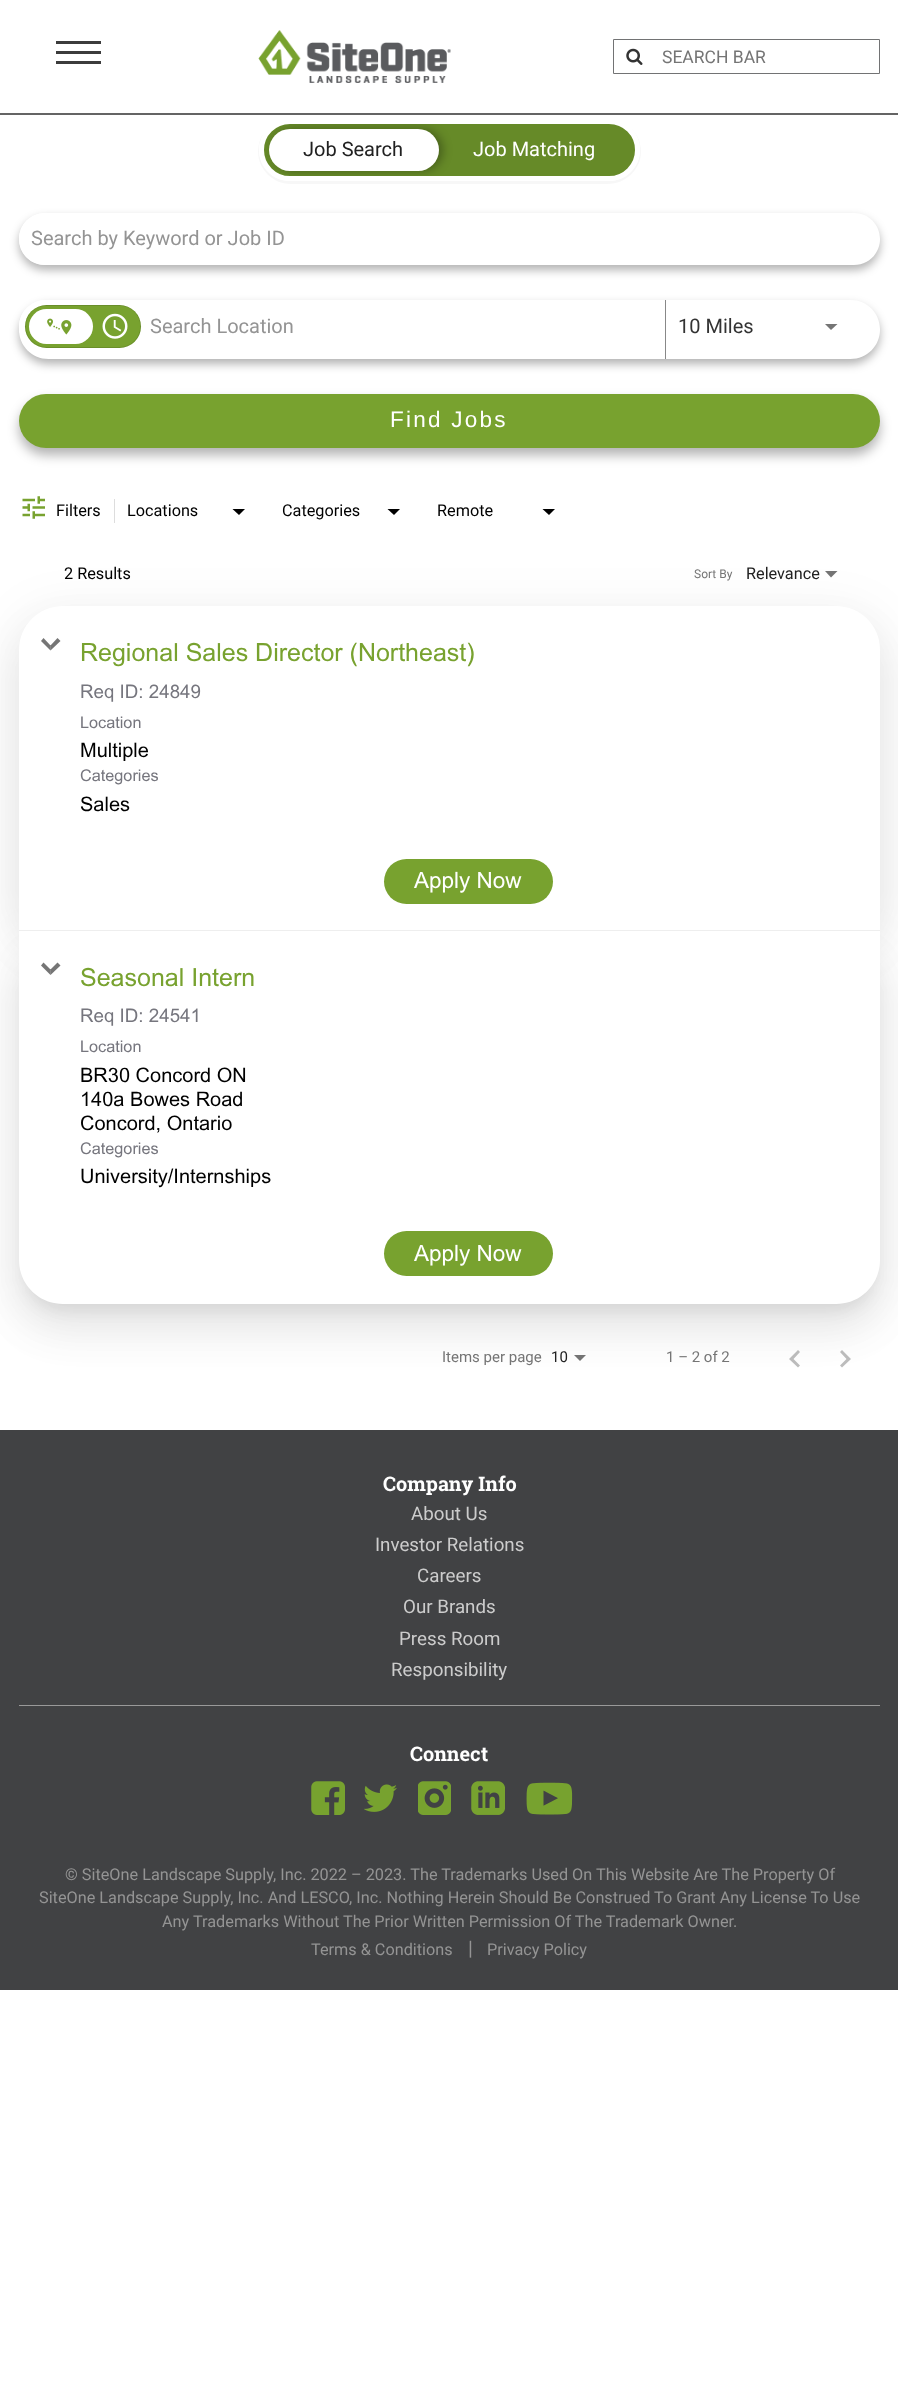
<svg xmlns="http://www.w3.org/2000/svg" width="898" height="2395">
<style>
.a{font:17.5px Roboto;fill:#757575}
.b{font:20px Roboto;fill:#212121}
.c{font:20px Roboto;fill:#fff}
.d{font:20px Roboto;fill:#949494}
.e{font:20px Roboto;fill:#333}
.f{font:22.5px Liberation Sans;letter-spacing:2.25px;fill:#fff}
.g{font:16.25px Roboto;fill:#000}
.h{font:12px Roboto;fill:#757575}
.i{font:16.25px Roboto;fill:#212121}
.j{font:25px Arial;fill:#78a22f}
.k{font:18.75px Arial;fill:#76767e}
.l{font:16.25px Arial;fill:#76767e}
.m{font:20px Arial;fill:#000}
.n{font:22.5px Arial;fill:#fff}
.o{font:15px Roboto;fill:#757575}
.p{font:15px Roboto;fill:#212121}
.q{font:bold 20px Roboto Slab;fill:#fff}
.r{font:18.75px Roboto;fill:#ccc}
.s{font:16.25px Roboto;fill:#949494}
</style>
<defs>
<clipPath id="clip1"><rect x="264" y="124" width="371" height="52" rx="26"/></clipPath>
<clipPath id="clip2"><path d="M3 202h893v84h-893zm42 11h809c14.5 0 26 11.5 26 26c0 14.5-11.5 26-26 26h-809c-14.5 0-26-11.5-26-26c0-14.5 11.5-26 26-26z" clip-rule="evenodd"/></clipPath>
<clipPath id="clip3"><path d="M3 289h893v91h-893zm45.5 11h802c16.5 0 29.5 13 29.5 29.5c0 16.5-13 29.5-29.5 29.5h-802c-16.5 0-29.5-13-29.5-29.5c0-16.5 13-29.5 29.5-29.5z" clip-rule="evenodd"/></clipPath>
</defs>
<rect width="100%" height="100%" fill="#fff"/>
<path fill="#00000008" d="M264 133c-4 5-6 12-6 19c0 17 15 32 32 32h318c18 0 33-15 33-32c0-10-4-18-10-24c5 6 9 13 9 22c0 17-14 31-31 31h-319c-17 0-31-14-31-31c0-6 2-12 5-17z"/>
<rect fill="#668a28" stroke="#fff" stroke-width="5" x="261.5" y="121.5" width="376" height="57" rx="28.5"/>
<g clip-path="url(#clip1)">
<rect fill="#0000004d" filter="blur(5px)" x="273" y="129" width="170" height="42" rx="21"/>
</g>
<path fill="#646464" d="M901 0h-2v112h-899v3h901z"/>
<path fill="#fff" d="M0 112h898v1H0z"/>
<path fill="#3c3c3c" d="M56 41h45v3H56z"/>
<path fill="#3c3c3c" d="M56 51h45v3H56z"/>
<path fill="#3c3c3c" d="M56 61h45v3H56z"/>
<image href="1.png" x="258" y="30" width="193" height="53"/>
<path fill="none" stroke="#727374" d="M613.5 39.5h266v34H613.5z"/>
<image href="2.png" x="626" y="48" width="17" height="17"/>
<rect fill="#fff" x="269" y="129" width="170" height="42" rx="21"/>
<g clip-path="url(#clip2)">
<rect fill="#0000004d" filter="blur(5px)" x="19" y="218" width="861" height="52" rx="26"/>
</g>
<rect fill="#fff" x="19" y="213" width="836" height="52" rx="26"/>
<g clip-path="url(#clip3)">
<rect fill="#0000004d" filter="blur(5px)" x="19" y="305" width="861" height="59" rx="29.5"/>
</g>
<rect fill="#fff" x="19" y="300" width="636" height="53" rx="26.5"/>
<rect fill="#fff" x="19" y="300" width="129" height="53" rx="26.5"/>
<rect fill="#78a22f" x="25" y="305" width="116" height="43" rx="21.5"/>
<rect fill="none" stroke="#0000001f" x="25.5" y="305.5" width="115" height="42" rx="21"/>
<path fill="#78a22f" d="M46 306h49v40h-49c-11 0-20-9-20-20c0-11 9-20 20-20z"/>
<rect fill="#fff" x="29" y="309" width="64" height="35" rx="17.5"/>
<image href="3.png" x="47" y="318" width="25" height="17"/>
<path fill="#78a22f" d="M95 306h25c11 0 20 9 20 20c0 11-9 20-20 20h-25z"/>
<image href="4.png" x="102" y="313" width="26" height="26"/>
<path fill="#fff" d="M665 300h160.5c16.5 0 29.5 13 29.5 29.5c0 16.5-13 29.5-29.5 29.5h-160.5z"/>
<path fill="#888" d="M665 300h1v59H665z"/>
<path fill="#757575" d="M825 324h12.5l-6.5 6z"/>
<rect fill="#0000004d" filter="blur(6px)" x="19" y="401" width="861" height="54" rx="27"/>
<rect fill="#78a22f" x="19" y="394" width="861" height="54" rx="27"/>
<image href="5.png" x="22" y="496" width="23" height="23"/>
<path fill="#ddd" d="M114 499h1v24H114z"/>
<path fill="#000" d="M232.5 509h12.5l-6 6z"/>
<path fill="#000" d="M387.5 509h12.5l-6 6z"/>
<path fill="#000" d="M542.5 509h12.5l-6 6z"/>
<path fill="#757575" d="M825 571h12.5l-6.5 6.5z"/>
<rect fill="#0000000d" filter="blur(24px)" x="10" y="608" width="879" height="342" rx="53"/>
<rect fill="#0000000f" filter="blur(19.5px)" x="15" y="628" width="869" height="332" rx="48"/>
<rect fill="#0000000d" filter="blur(24px)" x="10" y="933" width="879" height="390" rx="53"/>
<rect fill="#0000000f" filter="blur(19.5px)" x="15" y="953" width="869" height="380" rx="48"/>
<rect fill="#00000014" filter="blur(8px)" x="26" y="951" width="847" height="358" rx="36"/>
<path fill="#fff" d="M63 606h773c24.5 0 44 19.5 44 44v281h-861v-281c0-24.5 19.5-44 44-44z"/>
<path fill="#757575" d="M60.5 641l-10 9.5v-5l7-7.5z"/>
<path fill="#0000008a" d="M50.5 650.5l-9.5-9.5l2.5-3l7 7.5z"/>
<rect fill="#78a22f" x="384" y="859" width="169" height="45" rx="22.5"/>
<path fill="#eee" d="M19 930h861v1H19z"/>
<path fill="#fff" d="M19 931h861v329c0 24.5-19.5 44-44 44h-773c-24.5 0-44-19.5-44-44z"/>
<path fill="#757575" d="M60.5 965.5l-10 9.5v-5.5l7-7z"/>
<path fill="#0000008a" d="M50.5 975l-9.5-9.5l2.5-3l7 7z"/>
<rect fill="#78a22f" x="384" y="1231" width="169" height="45" rx="22.5"/>
<path fill="#747474" d="M574 1355h12l-6 6z"/>
<path fill="#00000042" d="M800 1352l-2-2l-9 9l9 8.5l2-2l-6.5-6.5zm42-2l-2 2l6.5 7l-6.5 6.5l2 2l9-8.5z"/>
<path fill="#414244" d="M0 1430h898v560H0z"/>
<path fill="#999" d="M19 1705h861v1H19z"/>
<image href="6.png" x="311" y="1781" width="34" height="34"/>
<image href="7.png" x="364" y="1784" width="33" height="28"/>
<image href="8.png" x="418" y="1781" width="33" height="34"/>
<image href="9.png" x="471" y="1781" width="34" height="34"/>
<image href="10.png" x="526" y="1782" width="47" height="33"/>
<text class="a" x="662" y="63">SEARCH BAR</text>
<text class="b" x="303" y="156">Job Search</text>
<text class="c" x="473" y="156">Job Matching</text>
<text class="d" x="31" y="245">Search by Keyword or Job ID</text>
<text class="d" x="150" y="333">Search Location</text>
<text class="e" x="678" y="333">10 Miles</text>
<text class="f" x="390" y="427">Find Jobs</text>
<text class="g" x="56" y="516">Filters</text>
<text class="g" x="127" y="516">Locations</text>
<text class="g" x="282" y="516">Categories</text>
<text class="g" x="437" y="516">Remote</text>
<text class="g" x="64" y="579">2 Results</text>
<text class="h" x="694" y="578">Sort By</text>
<text class="i" x="746" y="579">Relevance</text>
<text class="j" x="80" y="661">Regional Sales Director (Northeast)</text>
<text class="k" x="80" y="698">Req ID: 24849</text>
<text class="l" x="80" y="728">Location</text>
<text class="m" x="80" y="757">Multiple</text>
<text class="l" x="80" y="781">Categories</text>
<text class="m" x="80" y="811">Sales</text>
<text class="n" x="414" y="888">Apply Now</text>
<text class="j" x="80" y="986">Seasonal Intern</text>
<text class="k" x="80" y="1022">Req ID: 24541</text>
<text class="l" x="80" y="1052">Location</text>
<text class="m" x="80" y="1082">BR30 Concord ON</text>
<text class="m" x="80" y="1106">140a Bowes Road</text>
<text class="m" x="80" y="1130">Concord, Ontario</text>
<text class="l" x="80" y="1154">Categories</text>
<text class="m" x="80" y="1183">University/Internships</text>
<text class="n" x="414" y="1261">Apply Now</text>
<text class="o" x="442" y="1362">Items per page</text>
<text class="p" x="551" y="1362">10</text>
<text class="o" x="666" y="1362">1 – 2 of 2</text>
<text class="q" x="383" y="1491">Company Info</text>
<text class="r" x="411" y="1520">About Us</text>
<text class="r" x="375" y="1551">Investor Relations</text>
<text class="r" x="417" y="1582">Careers</text>
<text class="r" x="403" y="1613">Our Brands</text>
<text class="r" x="399" y="1645">Press Room</text>
<text class="r" x="391" y="1676">Responsibility</text>
<text class="q" x="410" y="1761">Connect</text>
<text class="s" x="65" y="1880">© SiteOne Landscape Supply, Inc. 2022 – 2023. The Trademarks Used On This Website Are The Property Of</text>
<text class="s" x="39" y="1903">SiteOne Landscape Supply, Inc. And LESCO, Inc. Nothing Herein Should Be Construed To Grant Any License To Use</text>
<text class="s" x="162" y="1927">Any Trademarks Without The Prior Written Permission Of The Trademark Owner.</text>
<text class="s" x="311" y="1955">Terms &amp; Conditions</text>
<text class="d" x="468" y="1955">|</text>
<text class="s" x="487" y="1955">Privacy Policy</text>
</svg>
